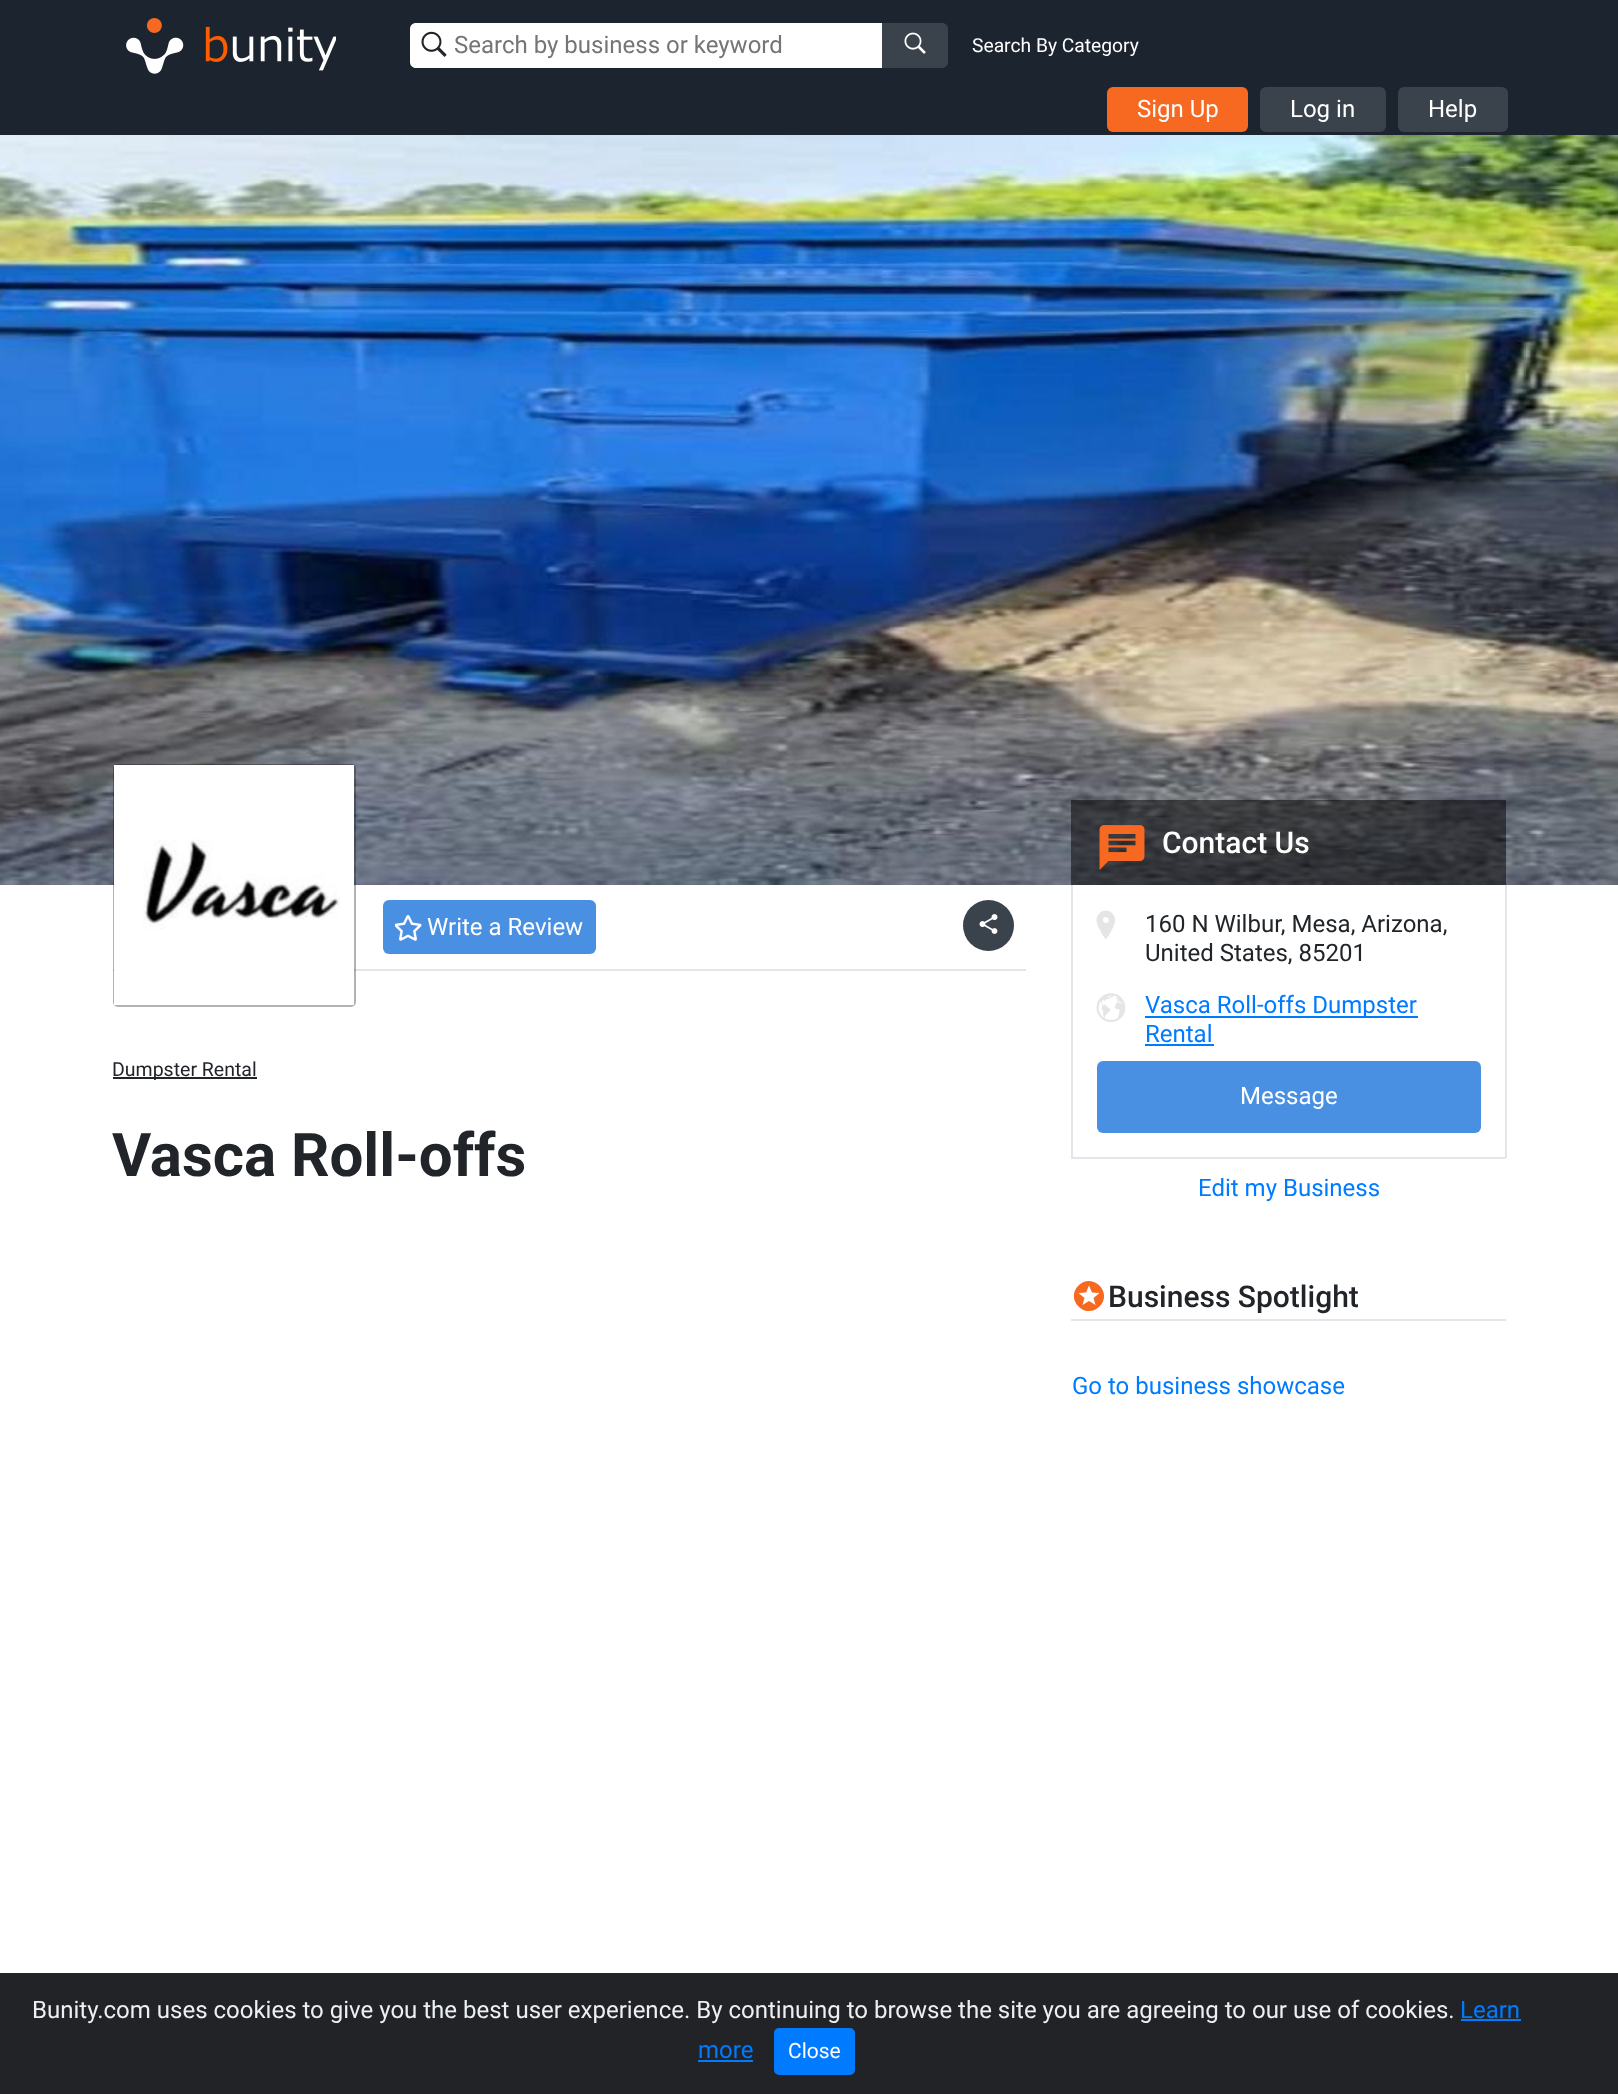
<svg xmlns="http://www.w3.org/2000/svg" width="1618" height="2094">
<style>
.a{font:24px Roboto;fill:#757575}
.b{font:19.25px Roboto;fill:#fff}
.c{font:24px Roboto;fill:#fff}
.d{font:19.5px Roboto;fill:#212529}
.e{font:bold 60px Roboto;fill:#212529}
.f{font:500 30px Roboto;fill:#fff}
.g{font:24px Roboto;fill:#212529}
.h{font:24px Roboto;fill:#007bff}
.i{font:500 30px Roboto;fill:#212529}
.j{font:24px Roboto;fill:#ecf0f1}
.k{font:21px Roboto;fill:#fff}
</style>
<rect width="100%" height="100%" fill="#fff"/>
<path fill="#1b242f" d="M0 0h1618v135H0z"/>
<image href="1.png" x="126" y="18" width="210" height="56"/>
<path fill="#fff" d="M416 23h466v45h-466c-3.5 0-6-2.5-6-6v-33c0-3.5 2.5-6 6-6z"/>
<image href="2.png" x="421" y="31" width="26" height="26"/>
<path fill="#3a424c" d="M882 23h60c3.5 0 6 2.5 6 6v33c0 3.5-2.5 6-6 6h-60z"/>
<image href="3.png" x="904" y="32" width="22" height="22"/>
<rect fill="#f76820" x="1107" y="87" width="141" height="45" rx="6"/>
<rect fill="#3a424c" x="1260" y="87" width="126" height="45" rx="6"/>
<rect fill="#3a424c" x="1398" y="87" width="110" height="45" rx="6"/>
<image href="4.png" x="0" y="135" width="1618" height="750"/>
<path fill="#e4e5ea" d="M113 969h913v2H113z"/>
<rect fill="#0000004d" x="113" y="764" width="243" height="243" rx="5"/>
<path fill="#fff" stroke="#fff" stroke-width="6" d="M117 768h234v234H117z"/>
<image href="5.png" x="143" y="839" width="197" height="90"/>
<rect fill="#4a90e2" x="383" y="900" width="213" height="54" rx="6"/>
<image href="6.png" x="395" y="915" width="27" height="26"/>
<circle fill="#3a424c" cx="988.5" cy="925.5" r="25.5"/>
<image href="7.png" x="979" y="914" width="19" height="20"/>
<path fill="#212529" d="M113 1077h144v2H113z"/>
<path fill="#00000080" d="M1071 800h435v85H1071z"/>
<image href="8.png" x="1099" y="825" width="46" height="45"/>
<path fill="#e4e5ea" d="M1505 885h2v273H1505z"/>
<path fill="#e4e5ea" d="M1071 1157h435v2H1071z"/>
<path fill="#e4e5ea" d="M1071 885h2v273H1071z"/>
<image href="9.png" x="1096" y="910" width="19" height="30"/>
<image href="10.png" x="1096" y="993" width="30" height="29"/>
<path fill="#007bff" d="M1145 1016h273v2H1145z"/>
<path fill="#007bff" d="M1145 1044h69v2H1145z"/>
<rect fill="#4a90e2" x="1097" y="1061" width="384" height="72" rx="6"/>
<path fill="#e4e5ea" d="M1071 1319h435v2H1071z"/>
<path fill="#f76820" d="M1095.5 1305l-2-7l6-5l-7.5-.5l-3-7l-3 7l-7.5 .5l6 5l-2 7l6.5-4zm-17-19.5c14-14 35 7 21 21c-14 14-35-7-21-21z"/>
<path fill="#212327" d="M0 1973h1618v121H0z"/>
<path fill="#007bff" d="M1461 2019h60v2H1461z"/>
<path fill="#007bff" d="M698 2060h55v2H698z"/>
<rect fill="#007bff" stroke="#007bff" stroke-width="2" x="775" y="2029" width="79" height="45" rx="4"/>
<text class="a" x="454" y="53">Search by business or keyword</text>
<text class="b" x="972" y="52">Search By Category</text>
<text class="c" x="1137" y="117">Sign Up</text>
<text class="c" x="1290" y="117">Log in</text>
<text class="c" x="1428" y="117">Help</text>
<text class="c" x="427" y="935">Write a Review</text>
<text class="d" x="112" y="1076">Dumpster Rental</text>
<text class="e" x="112" y="1176">Vasca Roll-offs</text>
<text class="f" x="1162" y="853">Contact Us</text>
<text class="g" x="1145" y="932">160 N Wilbur, Mesa, Arizona,</text>
<text class="g" x="1145" y="961">United States, 85201</text>
<text class="h" x="1145" y="1013">Vasca Roll-offs Dumpster</text>
<text class="h" x="1145" y="1042">Rental</text>
<text class="c" x="1240" y="1104">Message</text>
<text class="h" x="1198" y="1196">Edit my Business</text>
<text class="i" x="1108" y="1307">Business Spotlight</text>
<text class="h" x="1072" y="1394">Go to business showcase</text>
<text class="j" x="32" y="2018">Bunity.com uses cookies to give you the best user experience. By continuing to browse the site you are agreeing to our use of cookies.</text>
<text class="h" x="1460" y="2018">Learn</text>
<text class="h" x="698" y="2058">more</text>
<text class="k" x="788" y="2058">Close</text>
</svg>
